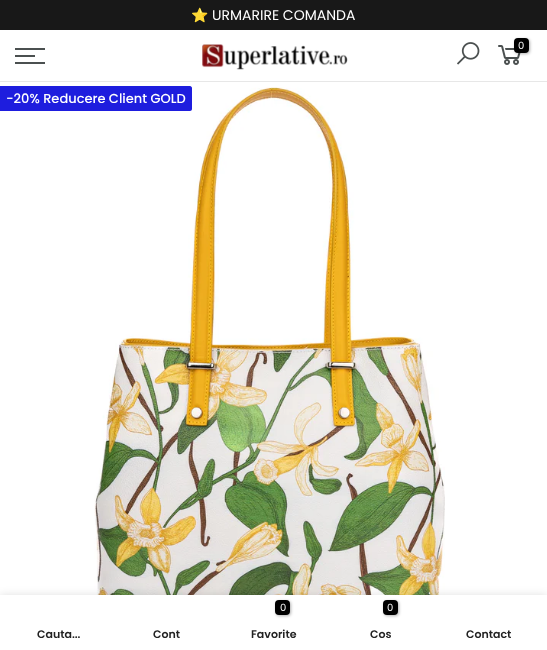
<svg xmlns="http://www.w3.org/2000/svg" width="547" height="650">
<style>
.a{font:14px Noto Color Emoji;fill:#fff}
.b{font:14px Poppins;fill:#fff}
.c{font:10px Poppins;fill:#fff}
.d{font:500 13px Poppins;fill:#fff}
.e{font:600 11px Poppins;fill:#222}
</style>
<rect width="100%" height="100%" fill="#fff"/>
<path fill="#181818" d="M0 0h547v30H0z"/>
<path fill="#e7e7e7" d="M0 81h547v1H0z"/>
<path fill="#4b5050" d="M15 48h30v2H15z"/>
<path fill="#4b5050" d="M15 55h20v2H15z"/>
<path fill="#4b5050" d="M15 62h30v2H15z"/>
<image href="1.png" x="202" y="44" width="146" height="26"/>
<image href="2.png" x="457" y="42" width="23" height="23"/>
<image href="3.png" x="498" y="45" width="23" height="20"/>
<rect fill="#0000004d" filter="blur(1.5px)" x="515" y="39" width="15" height="15" rx="4"/>
<rect fill="#000" x="514" y="38" width="15" height="15" rx="4"/>
<image href="4.png" x="94" y="87" width="351" height="508"/>
<path fill="#1e1dde" d="M0 86h190c1 0 2 1 2 2v21c0 1-1 2-2 2h-190z"/>
<path fill="#0000001f" filter="blur(4.5px)" d="M0 595h547v55H0z"/>
<path fill="#fff" d="M0 595h547v55H0z"/>
<rect fill="#0000004d" filter="blur(1.5px)" x="276" y="601" width="15" height="15" rx="4"/>
<rect fill="#000" x="275" y="600" width="15" height="15" rx="4"/>
<rect fill="#0000004d" filter="blur(1.5px)" x="384" y="601" width="15" height="15" rx="4"/>
<rect fill="#000" x="383" y="600" width="15" height="15" rx="4"/>
<text class="a" x="191" y="20">⭐</text>
<text class="b" x="212" y="20">URMARIRE COMANDA</text>
<text class="c" x="518" y="49">0</text>
<text class="d" x="6" y="103">-20% Reducere Client GOLD</text>
<text class="e" x="37" y="638">Cauta...</text>
<text class="e" x="153" y="638">Cont</text>
<text class="c" x="280" y="611">0</text>
<text class="e" x="251" y="638">Favorite</text>
<text class="c" x="387" y="611">0</text>
<text class="e" x="370" y="638">Cos</text>
<text class="e" x="466" y="638">Contact</text>
</svg>
